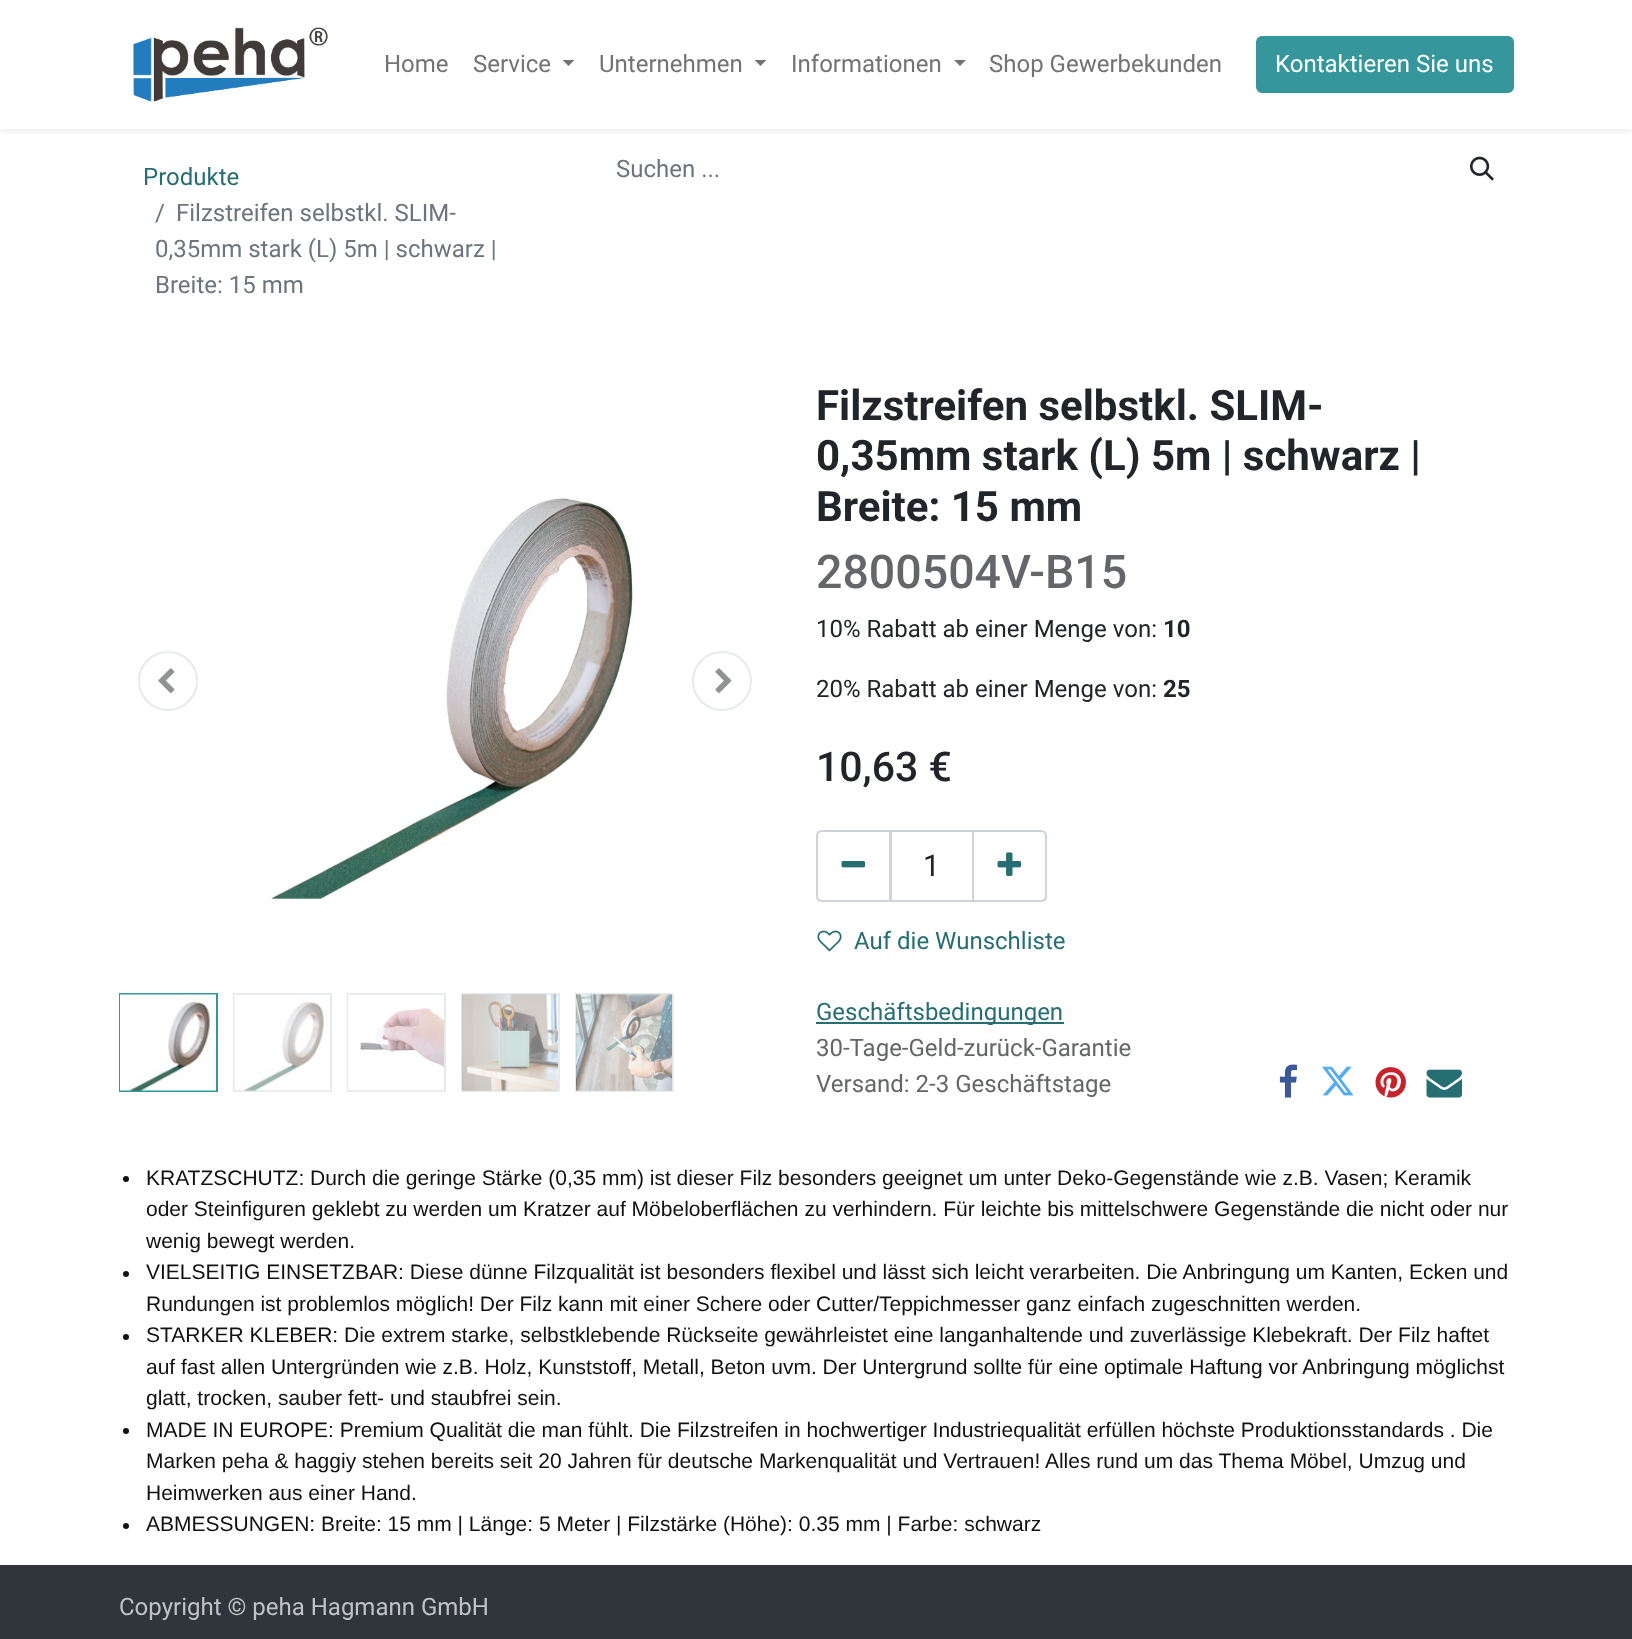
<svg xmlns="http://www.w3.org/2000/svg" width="1632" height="1639">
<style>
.a{font:24px Roboto;fill:#737373}
.b{font:24px Roboto;fill:#fff}
.c{font:24px Roboto;fill:#276e72}
.d{font:24px Roboto;fill:#6c757d}
.e{font:bold 42px Roboto;fill:#212529}
.f{font:500 46.5px Roboto;fill:#646669}
.g{font:24px Roboto;fill:#212529}
.h{font:bold 24px Roboto;fill:#212529}
.i{font:500 41px Roboto;fill:#212529}
.j{font:30px Roboto;fill:#212529}
.k{font:24px Roboto;fill:#646669}
.l{font:21px Liberation Sans;fill:#111}
.m{font:24px Roboto;fill:#c1c2c4}
</style>
<defs>
<clipPath id="clip1"><path d="M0 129h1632v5H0z"/></clipPath>
</defs>
<rect width="100%" height="100%" fill="#fff"/>
<g clip-path="url(#clip1)">
<path fill="#00000012" filter="blur(3px)" d="M0 3h1632v129H0z"/>
</g>
<image href="1.png" x="133" y="27" width="195" height="75"/>
<path fill="#737373" d="M562.5 60h12l-6 6z"/>
<path fill="#737373" d="M754.5 60h12l-6 6z"/>
<path fill="#737373" d="M954 60h12l-6 6z"/>
<rect fill="#35979c" stroke="#35979c" stroke-width="2" x="1257" y="37" width="256" height="55" rx="5"/>
<image href="2.png" x="1470" y="156" width="24" height="25"/>
<circle fill="none" stroke="#e7eaed" stroke-width="2" cx="168" cy="681" r="29"/>
<image href="3.png" x="158" y="668" width="17" height="25"/>
<image href="4.png" x="271" y="498" width="362" height="401"/>
<circle fill="none" stroke="#e7eaed" stroke-width="2" cx="722" cy="681" r="29"/>
<image href="5.png" x="715" y="668" width="17" height="25"/>
<path fill="none" stroke="#35979c" stroke-width="2" d="M120 994h97v97H120z"/>
<image href="6.png" x="120" y="994" width="96" height="97"/>
<path fill="none" stroke="#e7eaed" stroke-width="2" d="M234 994h97v97H234z"/>
<image href="7.png" x="234" y="994" width="96" height="97"/>
<path fill="none" stroke="#e7eaed" stroke-width="2" d="M348 994h97v97H348z"/>
<image href="8.png" x="348" y="994" width="96" height="97"/>
<path fill="none" stroke="#e7eaed" stroke-width="2" d="M462 994h97v97H462z"/>
<image href="9.png" x="462" y="994" width="96" height="97"/>
<path fill="none" stroke="#e7eaed" stroke-width="2" d="M576 994h97v97H576z"/>
<image href="10.png" x="576" y="994" width="96" height="97"/>
<path fill="none" stroke="#ced4da" stroke-width="2" d="M891 831h82v70H891z"/>
<path fill="none" stroke="#ced4da" stroke-width="2" d="M822 831h68v70h-68c-3 0-5-2-5-5v-60c0-3 2-5 5-5z"/>
<image href="11.png" x="841" y="861" width="25" height="7"/>
<path fill="none" stroke="#ced4da" stroke-width="2" d="M973 831h68c3 0 5 2 5 5v60c0 3-2 5-5 5h-68z"/>
<image href="12.png" x="997" y="852" width="25" height="24"/>
<image href="13.png" x="817" y="930" width="25" height="22"/>
<path fill="#276e72" d="M816 1022h248v2H816z"/>
<image href="14.png" x="1279" y="1064" width="18" height="34"/>
<image href="15.png" x="1322" y="1066" width="32" height="30"/>
<image href="16.png" x="1375" y="1067" width="31" height="31"/>
<image href="17.png" x="1426" y="1069" width="36" height="29"/>
<circle fill="#111" cx="126" cy="1179" r="3"/>
<circle fill="#111" cx="126" cy="1274" r="3"/>
<circle fill="#111" cx="126" cy="1337" r="3"/>
<circle fill="#111" cx="126" cy="1431" r="3"/>
<circle fill="#111" cx="126" cy="1526" r="3"/>
<path fill="#30353b" d="M0 1565h1632v74H0z"/>
<text class="a" x="384" y="72">Home</text>
<text class="a" x="473" y="72">Service</text>
<text class="a" x="599" y="72">Unternehmen</text>
<text class="a" x="791" y="72">Informationen</text>
<text class="a" x="989" y="72">Shop Gewerbekunden</text>
<text class="b" x="1275" y="72">Kontaktieren Sie uns</text>
<text class="c" x="143" y="185">Produkte</text>
<text class="d" x="155" y="221">/</text>
<text class="d" x="176" y="221">Filzstreifen selbstkl. SLIM-</text>
<text class="d" x="155" y="257">0,35mm stark (L) 5m | schwarz |</text>
<text class="d" x="155" y="293">Breite: 15 mm</text>
<text class="d" x="616" y="177">Suchen ...</text>
<text class="e" x="816" y="420">Filzstreifen selbstkl. SLIM-</text>
<text class="e" x="816" y="470">0,35mm stark (L) 5m | schwarz |</text>
<text class="e" x="816" y="521">Breite: 15 mm</text>
<text class="f" x="816" y="588">2800504V-B15</text>
<text class="g" x="816" y="637">10% Rabatt ab einer Menge von:</text>
<text class="h" x="1163" y="637">10</text>
<text class="g" x="816" y="697">20% Rabatt ab einer Menge von:</text>
<text class="h" x="1163" y="697">25</text>
<text class="i" x="816" y="781">10,63 €</text>
<text class="j" x="923" y="876">1</text>
<text class="c" x="854" y="949">Auf die Wunschliste</text>
<text class="c" x="816" y="1020">Geschäftsbedingungen</text>
<text class="k" x="816" y="1056">30-Tage-Geld-zurück-Garantie</text>
<text class="k" x="816" y="1092">Versand: 2-3 Geschäftstage</text>
<text class="l" x="146" y="1185">KRATZSCHUTZ: Durch die geringe Stärke (0,35 mm) ist dieser Filz besonders geeignet um unter Deko-Gegenstände wie z.B. Vasen; Keramik</text>
<text class="l" x="146" y="1216">oder Steinfiguren geklebt zu werden um Kratzer auf Möbeloberflächen zu verhindern. Für leichte bis mittelschwere Gegenstände die nicht oder nur</text>
<text class="l" x="146" y="1248">wenig bewegt werden.</text>
<text class="l" x="146" y="1279">VIELSEITIG EINSETZBAR: Diese dünne Filzqualität ist besonders flexibel und lässt sich leicht verarbeiten. Die Anbringung um Kanten, Ecken und</text>
<text class="l" x="146" y="1311">Rundungen ist problemlos möglich! Der Filz kann mit einer Schere oder Cutter/Teppichmesser ganz einfach zugeschnitten werden.</text>
<text class="l" x="146" y="1342">STARKER KLEBER: Die extrem starke, selbstklebende Rückseite gewährleistet eine langanhaltende und zuverlässige Klebekraft. Der Filz haftet</text>
<text class="l" x="146" y="1374">auf fast allen Untergründen wie z.B. Holz, Kunststoff, Metall, Beton uvm. Der Untergrund sollte für eine optimale Haftung vor Anbringung möglichst</text>
<text class="l" x="146" y="1405">glatt, trocken, sauber fett- und staubfrei sein.</text>
<text class="l" x="146" y="1437">MADE IN EUROPE: Premium Qualität die man fühlt. Die Filzstreifen in hochwertiger Industriequalität erfüllen höchste Produktionsstandards . Die</text>
<text class="l" x="146" y="1468">Marken peha &amp; haggiy stehen bereits seit 20 Jahren für deutsche Markenqualität und Vertrauen! Alles rund um das Thema Möbel, Umzug und</text>
<text class="l" x="146" y="1500">Heimwerken aus einer Hand.</text>
<text class="l" x="146" y="1531">ABMESSUNGEN: Breite: 15 mm | Länge: 5 Meter | Filzstärke (Höhe): 0.35 mm | Farbe: schwarz</text>
<text class="m" x="119" y="1615">Copyright © peha Hagmann GmbH</text>
</svg>
